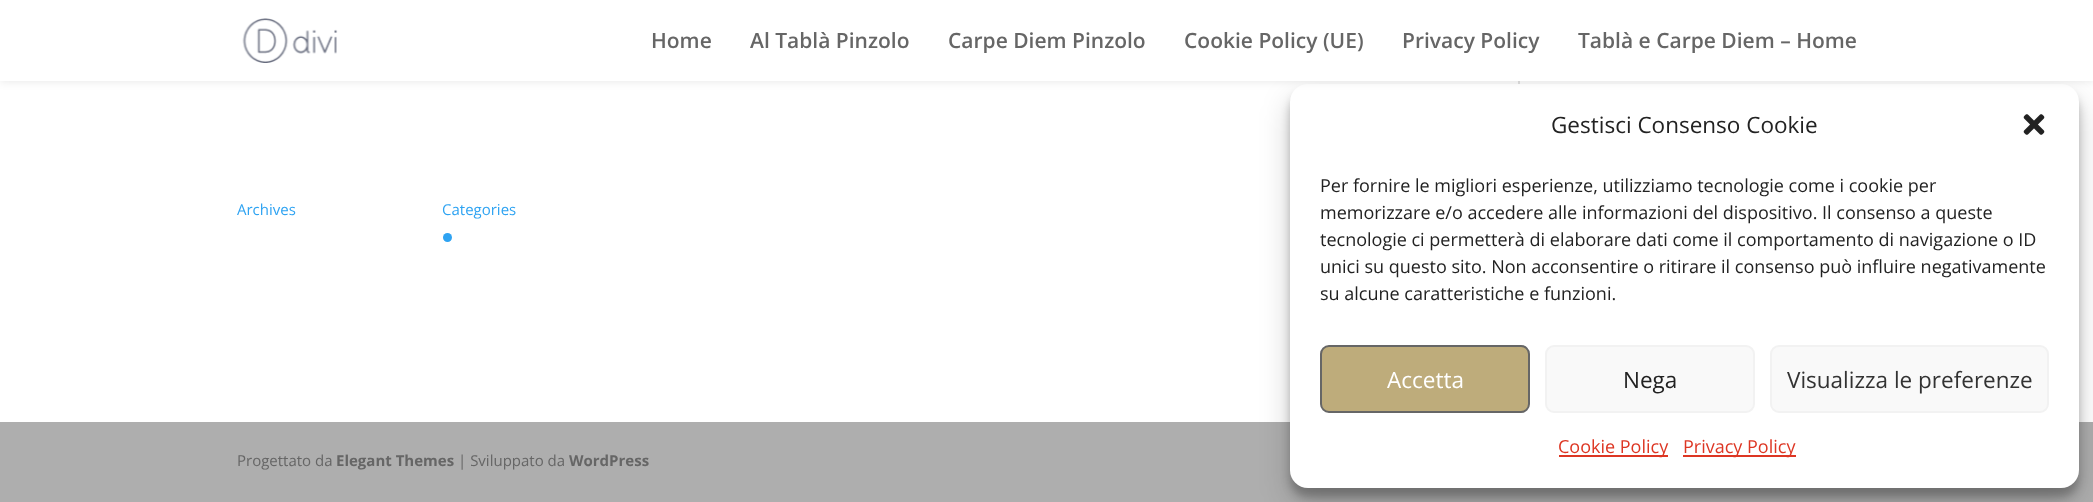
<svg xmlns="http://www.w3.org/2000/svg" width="2093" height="502">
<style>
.a{font:600 21px Open Sans;fill:#666}
.b{font:15px Open Sans;fill:#2ea3f2}
.c{font:15px Open Sans;fill:#666}
.d{font:bold 15px Open Sans;fill:#666}
.e{font:22.5px Open Sans;fill:#222}
.f{font:18px Open Sans;fill:#222}
.g{font:22.5px Open Sans;fill:#fff}
.h{font:22.5px Open Sans;fill:#333}
.i{font:18px Open Sans;fill:#dd3623}
</style>
<rect width="100%" height="100%" fill="#fff"/>
<path fill="#e2e2e2" d="M1518 81h2v3H1518z"/>
<path fill="#aeaeae" d="M0 422h2093v80H0z"/>
<rect fill="#0000003b" filter="blur(4.5px)" x="1290" y="93" width="789" height="404" rx="18"/>
<rect fill="#00000030" filter="blur(15px)" x="1290" y="99" width="789" height="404" rx="18"/>
<rect fill="#fff" x="1290" y="84" width="789" height="404" rx="18"/>
<path fill="#0000001a" filter="blur(5px)" d="M0 0h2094v81H0z"/>
<path fill="#fff" d="M0 0h2093v81H0z"/>
<image href="1.png" x="242" y="18" width="96" height="45"/>
<circle fill="#2ea3f2" cx="447.5" cy="237.5" r="4.5"/>
<image href="2.png" x="2023" y="114" width="22" height="21"/>
<rect fill="#beac7b" stroke="#666" stroke-width="2" x="1321" y="346" width="208" height="66" rx="8"/>
<rect fill="#f9f9f9" stroke="#f2f2f2" stroke-width="2" x="1546" y="346" width="208" height="66" rx="8"/>
<rect fill="#f9f9f9" stroke="#f2f2f2" stroke-width="2" x="1771" y="346" width="277" height="66" rx="8"/>
<path fill="#dd3623" d="M1559 455h109v2H1559z"/>
<path fill="#dd3623" d="M1683 455h113v2H1683z"/>
<text class="a" x="651" y="48">Home</text>
<text class="a" x="750" y="48">Al Tablà Pinzolo</text>
<text class="a" x="948" y="48">Carpe Diem Pinzolo</text>
<text class="a" x="1184" y="48">Cookie Policy (UE)</text>
<text class="a" x="1402" y="48">Privacy Policy</text>
<text class="a" x="1578" y="48">Tablà e Carpe Diem – Home</text>
<text class="b" x="237" y="215">Archives</text>
<text class="b" x="442" y="215">Categories</text>
<text class="c" x="237" y="466">Progettato da</text>
<text class="d" x="336" y="466">Elegant Themes</text>
<text class="c" x="458" y="466">| Sviluppato da</text>
<text class="d" x="569" y="466">WordPress</text>
<text class="e" x="1551" y="133">Gestisci Consenso Cookie</text>
<text class="f" x="1320" y="192">Per fornire le migliori esperienze, utilizziamo tecnologie come i cookie per</text>
<text class="f" x="1320" y="219">memorizzare e/o accedere alle informazioni del dispositivo. Il consenso a queste</text>
<text class="f" x="1320" y="246">tecnologie ci permetterà di elaborare dati come il comportamento di navigazione o ID</text>
<text class="f" x="1320" y="273">unici su questo sito. Non acconsentire o ritirare il consenso può influire negativamente</text>
<text class="f" x="1320" y="300">su alcune caratteristiche e funzioni.</text>
<text class="g" x="1387" y="388">Accetta</text>
<text class="e" x="1623" y="388">Nega</text>
<text class="h" x="1787" y="388">Visualizza le preferenze</text>
<text class="i" x="1558" y="453">Cookie Policy</text>
<text class="i" x="1683" y="453">Privacy Policy</text>
</svg>
